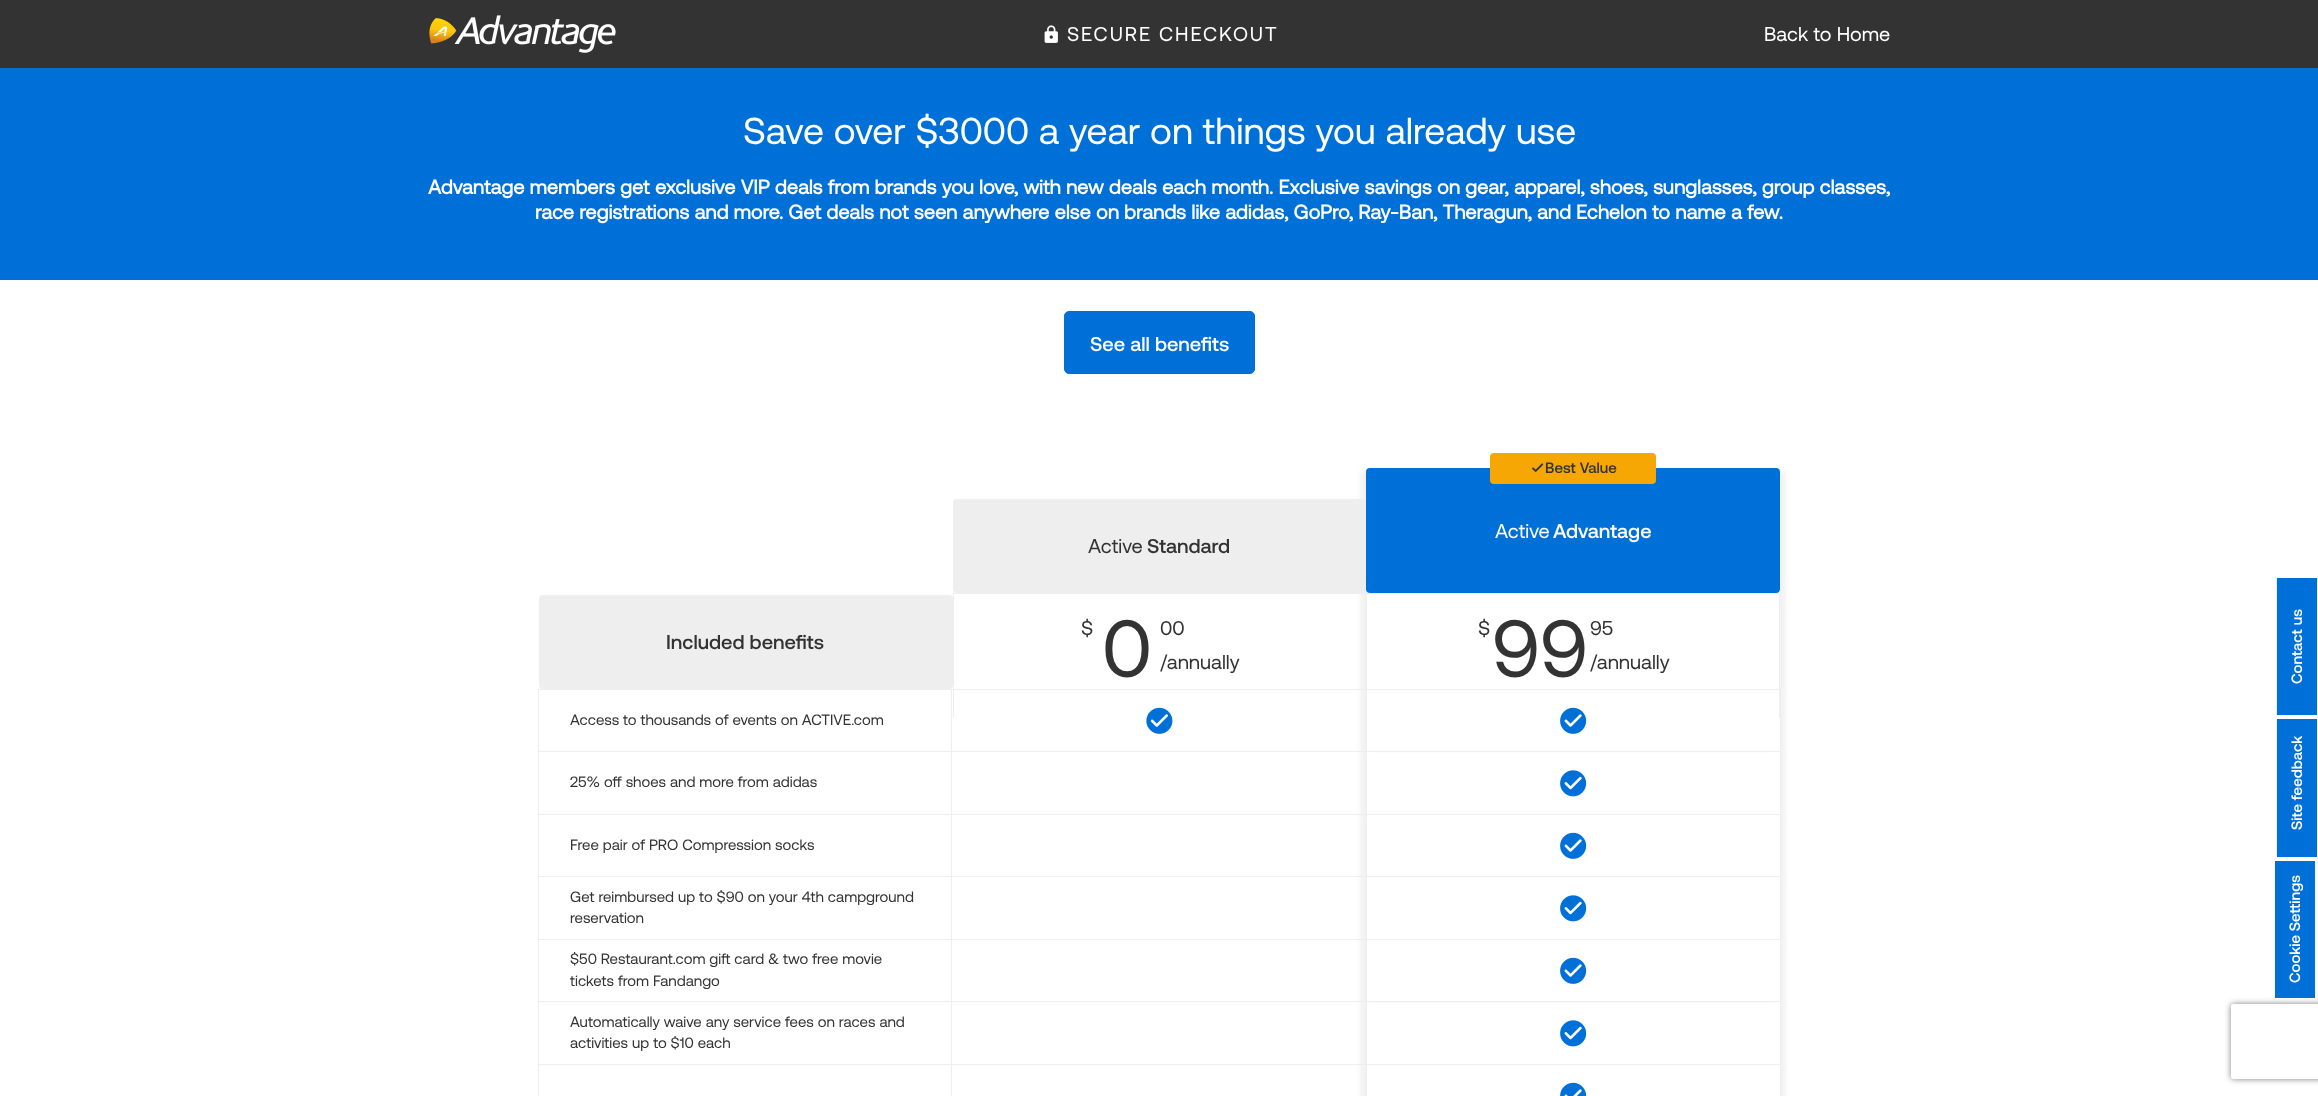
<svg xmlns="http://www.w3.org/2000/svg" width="2318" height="1096">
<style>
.a{font:20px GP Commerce;letter-spacing:1.9px;fill:#fff}
.b{font:20px GP Commerce;fill:#fff}
.c{font:37.5px GP Commerce;fill:#fff}
.d{font:bold 20px GP Commerce;fill:#fff}
.e{font:500 20px GP Commerce;fill:#fff}
.f{font:500 20px GP Commerce;fill:#333}
.g{font:20px GP Commerce;fill:#333}
.h{font:81px GP Commerce;fill:#333}
.i{font:500 15px GP Commerce;fill:#333}
.j{font:15px GP Commerce;fill:#333}
.k{font:500 15px GP Commerce;fill:#fff}
</style>
<defs>
<clipPath id="clip1"><path d="M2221 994h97v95h-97zm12.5 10h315c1.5 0 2.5 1 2.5 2.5v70c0 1.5-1 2.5-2.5 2.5h-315c-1.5 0-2.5-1-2.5-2.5v-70c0-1.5 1-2.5 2.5-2.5z" clip-rule="evenodd"/></clipPath>
</defs>
<rect width="100%" height="100%" fill="#fff"/>
<path fill="#333" d="M0 0h2318v68H0z"/>
<image href="1.png" x="429" y="15" width="187" height="38"/>
<image href="2.png" x="1044" y="25" width="14" height="18"/>
<path fill="#0070d9" d="M0 68h2318v212H0z"/>
<rect fill="#0070d9" stroke="#0070d9" x="1064.5" y="311.5" width="190" height="62" rx="4.5"/>
<rect fill="#eee" x="539" y="595" width="414" height="94" rx="4"/>
<path fill="#0000000d" filter="blur(2px)" d="M1360 471h414v223H1360z"/>
<rect fill="#eee" x="953" y="499" width="413" height="94" rx="4"/>
<path fill="#0000000d" filter="blur(2px)" d="M1373 471h413v223H1373z"/>
<path fill="#fff" d="M1366 468h414v221H1366z"/>
<path fill="#eee" d="M953 593h827v1H953z"/>
<path fill="#0000000d" filter="blur(2px)" d="M1373 694h413v62H1373z"/>
<path fill="#0000000d" filter="blur(2px)" d="M1360 694h414v62H1360z"/>
<path fill="#eee" d="M951 689h830v1H951z"/>
<path fill="#eee" d="M953 593h1v125H953z"/>
<rect fill="#0070d9" x="1366" y="468" width="414" height="125" rx="4"/>
<rect fill="#f6a704" x="1490" y="453" width="166" height="31" rx="4"/>
<image href="3.png" x="1532" y="463" width="12" height="9"/>
<path fill="#fff" d="M1367 690h413v63H1367z"/>
<path fill="#eee" d="M1779 593h1v125H1779z"/>
<path fill="#eee" d="M1366 593h1v125H1366z"/>
<path fill="#0000000d" filter="blur(2px)" d="M1373 756h413v63H1373z"/>
<path fill="#0000000d" filter="blur(2px)" d="M1360 756h414v63H1360z"/>
<path fill="#eee" d="M1366 751h415v1H1366z"/>
<path fill="#fff" d="M1367 753h413v61H1367z"/>
<path fill="#0000000d" filter="blur(2px)" d="M1373 819h413v62H1373z"/>
<path fill="#0000000d" filter="blur(2px)" d="M1360 819h414v62H1360z"/>
<path fill="#eee" d="M1366 814h415v1H1366z"/>
<path fill="#fff" d="M1367 815h413v63H1367z"/>
<path fill="#0000000d" filter="blur(2px)" d="M1373 881h413v63H1373z"/>
<path fill="#0000000d" filter="blur(2px)" d="M1360 881h414v63H1360z"/>
<path fill="#eee" d="M1366 876h415v1H1366z"/>
<path fill="#fff" d="M1367 878h413v61H1367z"/>
<path fill="#0000000d" filter="blur(2px)" d="M1373 944h413v62H1373z"/>
<path fill="#0000000d" filter="blur(2px)" d="M1360 944h414v62H1360z"/>
<path fill="#eee" d="M1366 939h415v1H1366z"/>
<path fill="#fff" d="M1367 940h413v63H1367z"/>
<path fill="#0000000d" filter="blur(2px)" d="M1373 1006h413v63H1373z"/>
<path fill="#0000000d" filter="blur(2px)" d="M1360 1006h414v63H1360z"/>
<path fill="#eee" d="M1366 1001h415v1H1366z"/>
<path fill="#fff" d="M1367 1003h413v61H1367z"/>
<path fill="#0000000d" filter="blur(2px)" d="M1373 1069h413v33H1373z"/>
<path fill="#0000000d" filter="blur(2px)" d="M1360 1069h414v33H1360z"/>
<path fill="#eee" d="M1366 1064h415v1H1366z"/>
<path fill="#eee" d="M1780 1064h1v32H1780z"/>
<path fill="#eee" d="M1780 1001h1v64H1780z"/>
<path fill="#eee" d="M1780 939h1v64H1780z"/>
<path fill="#eee" d="M1780 876h1v64H1780z"/>
<path fill="#eee" d="M1780 814h1v64H1780z"/>
<path fill="#eee" d="M1780 751h1v64H1780z"/>
<path fill="#eee" d="M1780 689h1v64H1780z"/>
<path fill="#eee" d="M1366 1064h1v32H1366z"/>
<path fill="#eee" d="M951 1064h417v1H951z"/>
<path fill="#eee" d="M1366 1001h1v64H1366z"/>
<path fill="#eee" d="M951 1001h417v1H951z"/>
<path fill="#eee" d="M1366 939h1v64H1366z"/>
<path fill="#eee" d="M951 939h417v1H951z"/>
<path fill="#eee" d="M1366 876h1v64H1366z"/>
<path fill="#eee" d="M951 876h417v1H951z"/>
<path fill="#eee" d="M1366 814h1v64H1366z"/>
<path fill="#eee" d="M951 814h417v1H951z"/>
<path fill="#eee" d="M1366 751h1v64H1366z"/>
<path fill="#eee" d="M951 751h417v1H951z"/>
<path fill="#eee" d="M1366 718h1v35H1366z"/>
<image href="4.png" x="1560" y="707" width="27" height="27"/>
<path fill="#eee" d="M951 1064h1v32H951z"/>
<path fill="#eee" d="M538 1064h415v1H538z"/>
<path fill="#eee" d="M951 1001h1v64H951z"/>
<path fill="#eee" d="M538 1001h415v1H538z"/>
<path fill="#eee" d="M951 939h1v64H951z"/>
<path fill="#eee" d="M538 939h415v1H538z"/>
<path fill="#eee" d="M951 876h1v64H951z"/>
<path fill="#eee" d="M538 876h415v1H538z"/>
<path fill="#eee" d="M951 814h1v64H951z"/>
<path fill="#eee" d="M538 814h415v1H538z"/>
<path fill="#eee" d="M951 751h1v64H951z"/>
<path fill="#eee" d="M538 751h415v1H538z"/>
<path fill="#eee" d="M951 689h1v64H951z"/>
<path fill="#eee" d="M538 689h415v1H538z"/>
<path fill="#eee" d="M538 1064h1v32H538z"/>
<path fill="#eee" d="M538 1001h1v64H538z"/>
<path fill="#eee" d="M538 939h1v64H538z"/>
<path fill="#eee" d="M538 876h1v64H538z"/>
<path fill="#eee" d="M538 814h1v64H538z"/>
<path fill="#eee" d="M538 751h1v64H538z"/>
<path fill="#eee" d="M538 689h1v64H538z"/>
<image href="5.png" x="1146" y="707" width="27" height="27"/>
<image href="6.png" x="1560" y="770" width="27" height="27"/>
<image href="4.png" x="1560" y="832" width="27" height="27"/>
<image href="6.png" x="1560" y="895" width="27" height="27"/>
<image href="4.png" x="1560" y="957" width="27" height="27"/>
<image href="6.png" x="1560" y="1020" width="27" height="27"/>
<path fill="#fff" d="M1367 1065h413v31H1367z"/>
<image href="7.png" x="1560" y="1082" width="27" height="14"/>
<path fill="#0070d9" d="M2278 578h39v137H2278z"/>
<path fill="none" stroke="#0070d9" stroke-width="1.2" d="M2277.5 714.5v-136h38.5v136z"/>
<path fill="#0070d9" d="M2277 719h40v138H2277z"/>
<path fill="none" stroke="#0070d9" stroke-width="1.2" d="M2277.5 856v-136h38.5v136z"/>
<path fill="#0070d9" d="M2275 861h40v137H2275z"/>
<g clip-path="url(#clip1)">
<rect fill="#808080" filter="blur(3px)" x="2231" y="1004" width="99" height="75" rx="2.5"/>
</g>
<text class="a" x="1067" y="41">SECURE CHECKOUT</text>
<text class="b" x="1764" y="41">Back to Home</text>
<text class="c" x="743" y="144">Save over $3000 a year on things you already use</text>
<text class="d" x="428" y="194">Advantage members get exclusive VIP deals from brands you love, with new deals each month. Exclusive savings on gear, apparel, shoes, sunglasses, group classes,</text>
<text class="d" x="535" y="219">race registrations and more. Get deals not seen anywhere else on brands like adidas, GoPro, Ray-Ban, Theragun, and Echelon to name a few.</text>
<text class="e" x="1090" y="351">See all benefits</text>
<text class="f" x="666" y="649">Included benefits</text>
<text class="g" x="1088" y="553">Active</text>
<text class="f" x="1147" y="553">Standard</text>
<text class="g" x="1081" y="635">$</text>
<text class="h" x="1102" y="677">0</text>
<text class="g" x="1160" y="635">00</text>
<text class="g" x="1160" y="669">/annually</text>
<text class="i" x="1545" y="473">Best Value</text>
<text class="b" x="1495" y="538">Active</text>
<text class="e" x="1553" y="538">Advantage</text>
<text class="g" x="1478" y="635">$</text>
<text class="h" x="1492" y="677">99</text>
<text class="g" x="1590" y="635">95</text>
<text class="g" x="1590" y="669">/annually</text>
<text class="j" x="570" y="725">Access to thousands of events on ACTIVE.com</text>
<text class="j" x="570" y="787">25% off shoes and more from adidas</text>
<text class="j" x="570" y="850">Free pair of PRO Compression socks</text>
<text class="j" x="570" y="902">Get reimbursed up to $90 on your 4th campground</text>
<text class="j" x="570" y="923">reservation</text>
<text class="j" x="570" y="964">$50 Restaurant.com gift card &amp; two free movie</text>
<text class="j" x="570" y="986">tickets from Fandango</text>
<text class="j" x="570" y="1027">Automatically waive any service fees on races and</text>
<text class="j" x="570" y="1048">activities up to $10 each</text>
<text class="k" x="2302" y="684" transform="rotate(-90 2302 684)">Contact us</text>
<text class="k" x="2302" y="830" transform="rotate(-90 2302 830)">Site feedback</text>
<text class="k" x="2300" y="983" transform="rotate(-90 2300 983)">Cookie Settings</text>
</svg>
